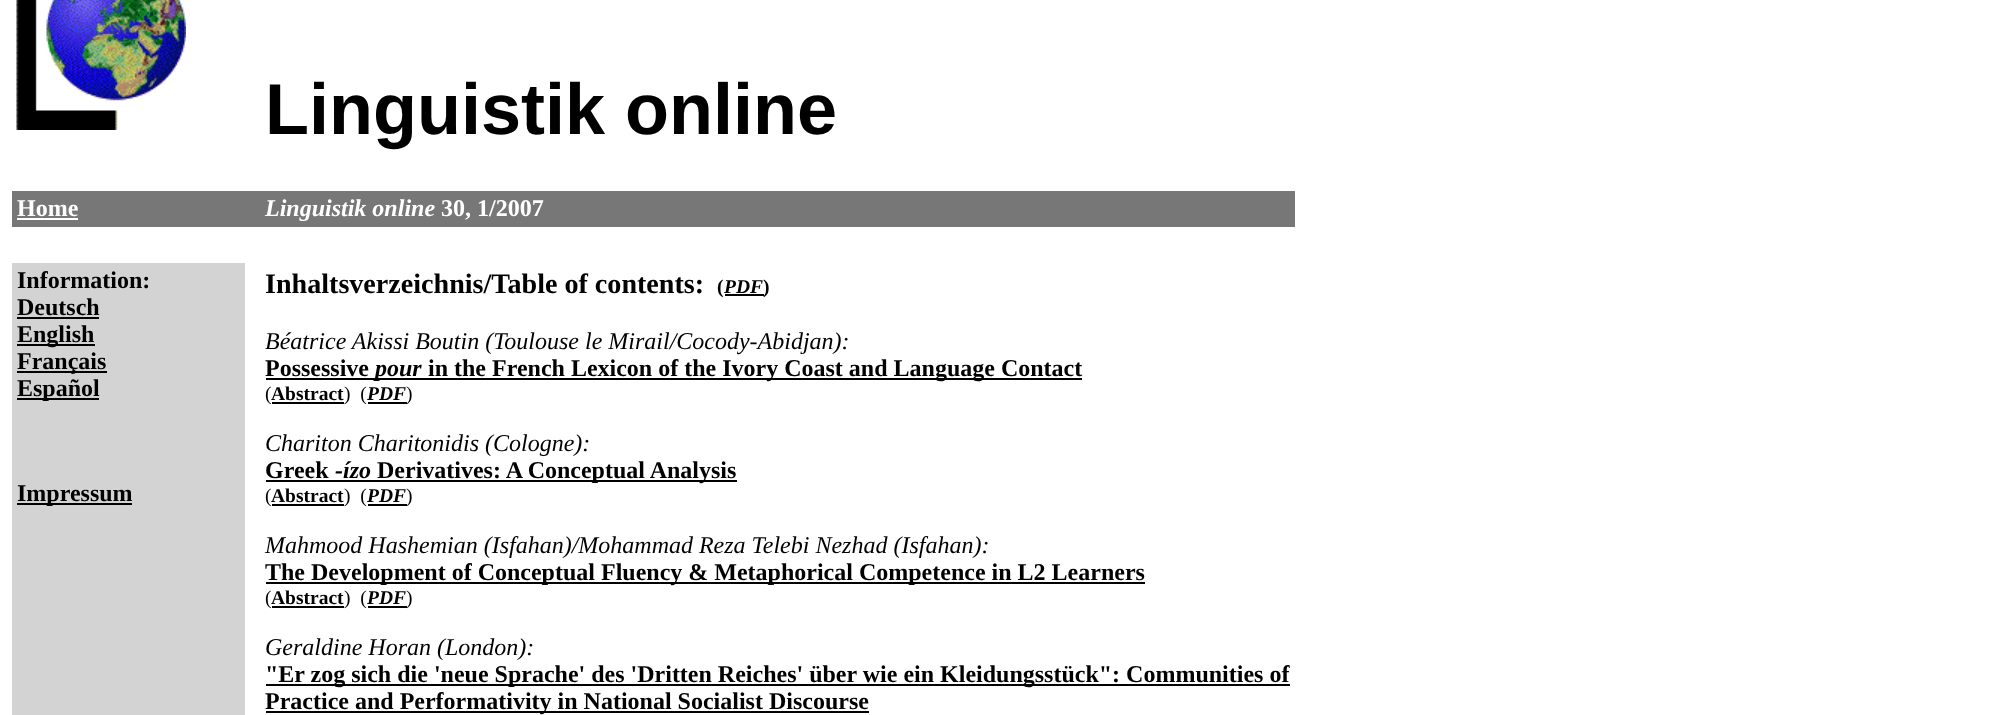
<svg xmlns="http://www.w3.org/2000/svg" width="1992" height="715">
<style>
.a{font:bold 72px Liberation Sans;fill:#000}
.b{font:bold 24px Liberation Serif;fill:#fff}
.c{font:italic bold 24px Liberation Serif;fill:#fff}
.d{font:bold 24px Liberation Serif;fill:#000}
.e{font:bold 28.1px Liberation Serif;fill:#000}
.f{font:bold 19.5px Liberation Serif;fill:#000}
.g{font:italic bold 19.5px Liberation Serif;fill:#000}
.h{font:italic 24px Liberation Serif;fill:#000}
.i{font:italic bold 24px Liberation Serif;fill:#000}
.j{font:19.5px Liberation Serif;fill:#000}
</style>
<rect width="100%" height="100%" fill="#fff"/>
<image href="1.png" x="16" y="0" width="170" height="130"/>
<path fill="#777" d="M12 191h1283v36H12z"/>
<path fill="#fff" d="M17 218h61v2H17z"/>
<path fill="#d3d3d3" d="M12 263h233v452H12z"/>
<path fill="#000" d="M17 317h82v2H17z"/>
<path fill="#000" d="M17 344h78v2H17z"/>
<path fill="#000" d="M17 371h90v2H17z"/>
<path fill="#000" d="M17 398h82v2H17z"/>
<path fill="#000" d="M17 503h115v2H17z"/>
<path fill="#000" d="M725 294h39v2H725z"/>
<path fill="#000" d="M266 378h816v2H266z"/>
<path fill="#000" d="M272 402h72v2H272z"/>
<path fill="#000" d="M368 402h39v2H368z"/>
<path fill="#000" d="M266 480h471v2H266z"/>
<path fill="#000" d="M272 504h72v2H272z"/>
<path fill="#000" d="M368 504h39v2H368z"/>
<path fill="#000" d="M266 582h879v2H266z"/>
<path fill="#000" d="M272 606h72v2H272z"/>
<path fill="#000" d="M368 606h39v2H368z"/>
<path fill="#000" d="M266 684h1024v2H266z"/>
<path fill="#000" d="M266 711h603v2H266z"/>
<text class="a" x="265" y="134">Linguistik online</text>
<text class="b" x="17" y="216">Home</text>
<text class="c" x="265" y="216">Linguistik online</text>
<text class="b" x="441" y="216">30, 1/2007</text>
<text class="d" x="17" y="288">Information:</text>
<text class="d" x="17" y="315">Deutsch</text>
<text class="d" x="17" y="342">English</text>
<text class="d" x="17" y="369">Français</text>
<text class="d" x="17" y="396">Español</text>
<text class="d" x="17" y="501">Impressum</text>
<text class="e" x="265" y="293">Inhaltsverzeichnis/Table of contents:</text>
<text class="f" x="717" y="293">(</text>
<text class="g" x="724" y="293">PDF</text>
<text class="f" x="763" y="293">)</text>
<text class="h" x="265" y="349">Béatrice Akissi Boutin (Toulouse le Mirail/Cocody-Abidjan):</text>
<text class="d" x="265" y="376">Possessive</text>
<text class="i" x="375" y="376">pour</text>
<text class="d" x="428" y="376">in the French Lexicon of the Ivory Coast and Language Contact</text>
<text class="j" x="265" y="400">(</text>
<text class="f" x="271" y="400">Abstract</text>
<text class="j" xml:space="preserve" x="344" y="400">)  (</text>
<text class="g" x="367" y="400">PDF</text>
<text class="j" x="406" y="400">)</text>
<text class="h" x="265" y="451">Chariton Charitonidis (Cologne):</text>
<text class="d" x="265" y="478">Greek</text>
<text class="i" x="335" y="478">-ízo</text>
<text class="d" x="377" y="478">Derivatives: A Conceptual Analysis</text>
<text class="j" x="265" y="502">(</text>
<text class="f" x="271" y="502">Abstract</text>
<text class="j" xml:space="preserve" x="344" y="502">)  (</text>
<text class="g" x="367" y="502">PDF</text>
<text class="j" x="406" y="502">)</text>
<text class="h" x="265" y="553">Mahmood Hashemian (Isfahan)/Mohammad Reza Telebi Nezhad (Isfahan):</text>
<text class="d" x="265" y="580">The Development of Conceptual Fluency &amp; Metaphorical Competence in L2 Learners</text>
<text class="j" x="265" y="604">(</text>
<text class="f" x="271" y="604">Abstract</text>
<text class="j" xml:space="preserve" x="344" y="604">)  (</text>
<text class="g" x="367" y="604">PDF</text>
<text class="j" x="406" y="604">)</text>
<text class="h" x="265" y="655">Geraldine Horan (London):</text>
<text class="d" x="265" y="682">"Er zog sich die 'neue Sprache' des 'Dritten Reiches' über wie ein Kleidungsstück": Communities of</text>
<text class="d" x="265" y="709">Practice and Performativity in National Socialist Discourse</text>
</svg>
